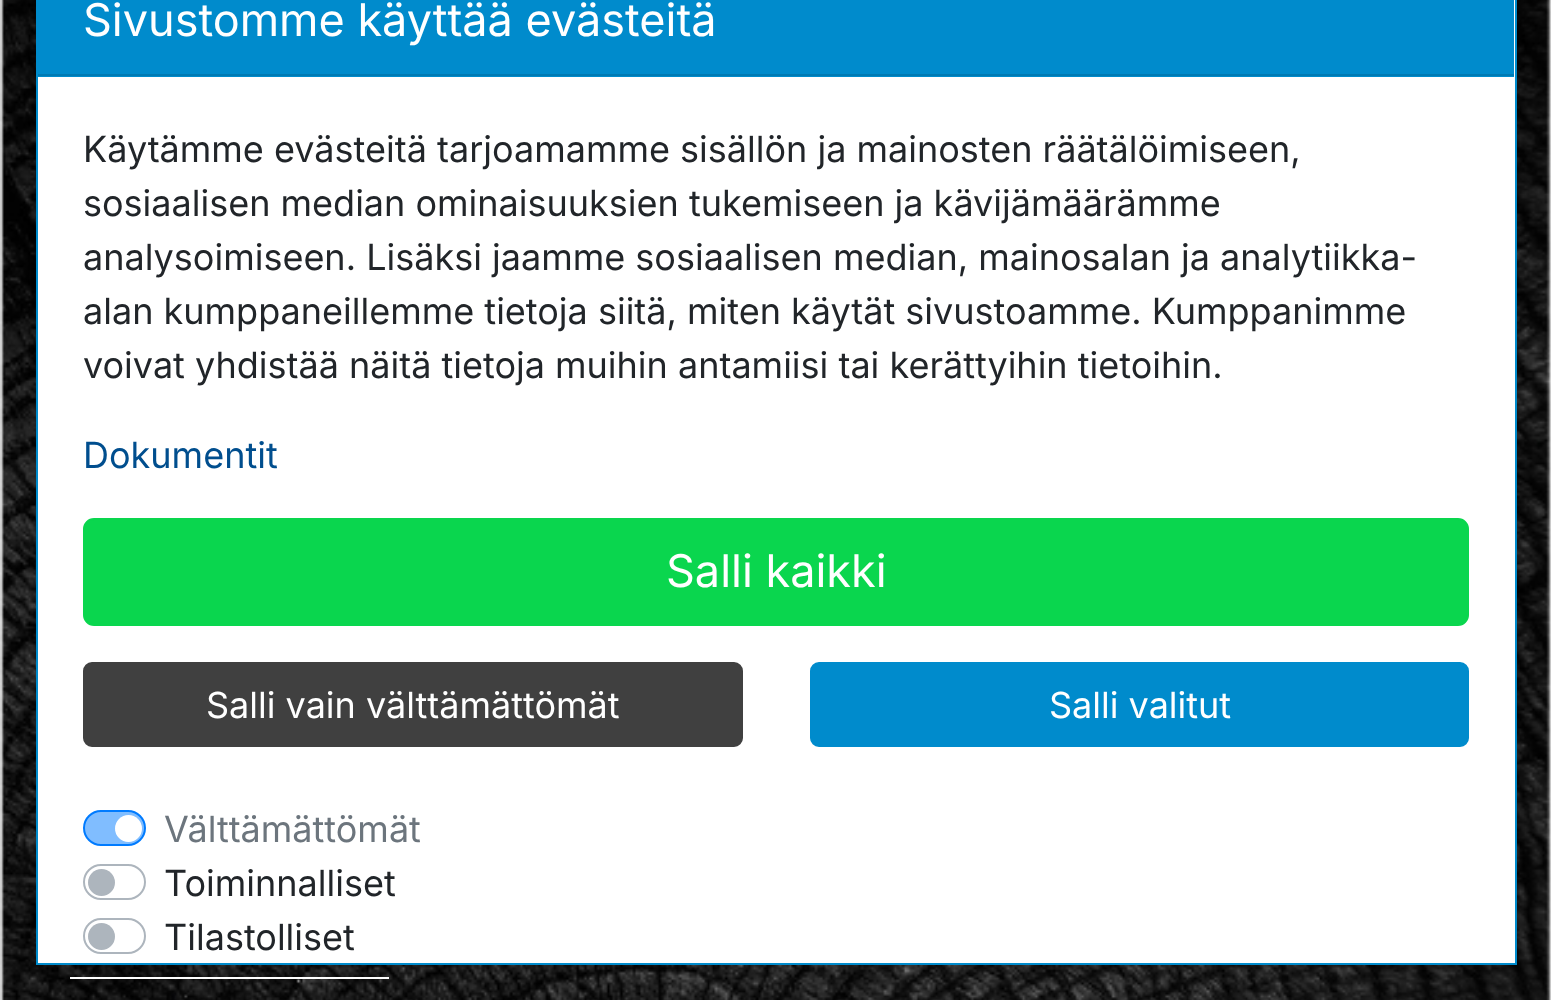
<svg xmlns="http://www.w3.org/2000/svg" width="1551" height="1000">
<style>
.a{font:45px Inter;fill:#fff}
.b{font:36px Inter;fill:#212529}
.c{font:36px Inter;fill:#004e8e}
.d{font:36px Inter;fill:#fff}
.e{font:36px Inter;fill:#6c757d}
</style>
<rect width="100%" height="100%" fill="#fff"/>
<image href="1.png" x="0" y="0" width="1551" height="1000"/>
<path fill="#fff" d="M70 977h319v2H70z"/>
<path fill="none" stroke="#008bcc" stroke-width="2.2" d="M65 928c16 0 28.5 6.5 28.5 15c0 8-12.5 14.5-28.5 14.5c-15.5 0-28-6.5-28-14.5c0-8.5 12.5-15 28-15z"/>
<path fill="#00000012" filter="blur(4.5px)" d="M36 -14h1481v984H36z"/>
<path fill="#fff" stroke="#008bcc" stroke-width="2" d="M37 -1h1479v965H37z"/>
<path fill="#008bcc" d="M38 0h1476v77H38z"/>
<path fill="#007ab3" d="M38 74h1476v2H38z"/>
<rect fill="#0ad64e" stroke="#0ad64e" stroke-width="2" x="84" y="519" width="1384" height="106" rx="10"/>
<rect fill="#404040" stroke="#404040" stroke-width="2" x="84" y="663" width="658" height="83" rx="8"/>
<rect fill="#008bcc" stroke="#008bcc" stroke-width="2" x="811" y="663" width="657" height="83" rx="8"/>
<rect fill="#80bdff" stroke="#007bff" stroke-width="2" x="84" y="811" width="61" height="34" rx="17"/>
<circle fill="#fff" cx="128.5" cy="828.5" r="13.5"/>
<rect fill="none" stroke="#adb5bd" stroke-width="2" x="84" y="865" width="61" height="34" rx="17"/>
<circle fill="#adb5bd" cx="101.5" cy="882.5" r="13.5"/>
<rect fill="none" stroke="#adb5bd" stroke-width="2" x="84" y="919" width="61" height="34" rx="17"/>
<circle fill="#adb5bd" cx="101.5" cy="936.5" r="13.5"/>
<text class="a" x="83" y="36">Sivustomme käyttää evästeitä</text>
<text class="b" x="83" y="162">Käytämme evästeitä tarjoamamme sisällön ja mainosten räätälöimiseen,</text>
<text class="b" x="83" y="216">sosiaalisen median ominaisuuksien tukemiseen ja kävijämäärämme</text>
<text class="b" x="83" y="270">analysoimiseen. Lisäksi jaamme sosiaalisen median, mainosalan ja analytiikka-</text>
<text class="b" x="83" y="324">alan kumppaneillemme tietoja siitä, miten käytät sivustoamme. Kumppanimme</text>
<text class="b" x="83" y="378">voivat yhdistää näitä tietoja muihin antamiisi tai kerättyihin tietoihin.</text>
<text class="c" x="83" y="468">Dokumentit</text>
<text class="a" x="666" y="587">Salli kaikki</text>
<text class="d" x="206" y="718">Salli vain välttämättömät</text>
<text class="d" x="1049" y="718">Salli valitut</text>
<text class="e" x="164" y="842">Välttämättömät</text>
<text class="b" x="164" y="896">Toiminnalliset</text>
<text class="b" x="164" y="950">Tilastolliset</text>
</svg>
